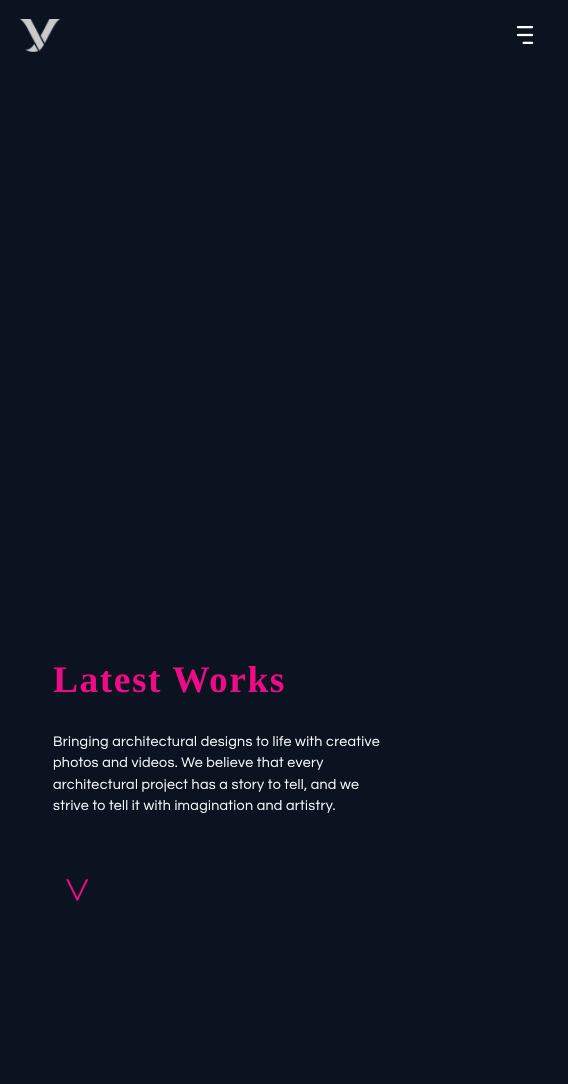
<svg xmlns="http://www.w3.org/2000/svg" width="568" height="1084">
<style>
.a{font:bold 37.5px Liberation Serif;letter-spacing:1.5px;fill:#ee0b86}
.b{font:14.3px Questrial;letter-spacing:0.3px;fill:#fff}
.c{font:46px Liberation Serif;fill:#ee0b86}
</style>
<rect width="100%" height="100%" fill="#0b1321"/>
<image href="1.png" x="19" y="19" width="42" height="33"/>
<image href="2.png" x="516" y="26" width="18" height="18"/>
<text class="a" x="53" y="692">Latest Works</text>
<text class="b" x="53" y="746">Bringing architectural designs to life with creative</text>
<text class="b" x="53" y="767">photos and videos. We believe that every</text>
<text class="b" x="53" y="789">architectural project has a story to tell, and we</text>
<text class="b" x="53" y="810">strive to tell it with imagination and artistry.</text>
<text class="c" x="62" y="877" transform="rotate(90 62 877)">&gt;</text>
</svg>
